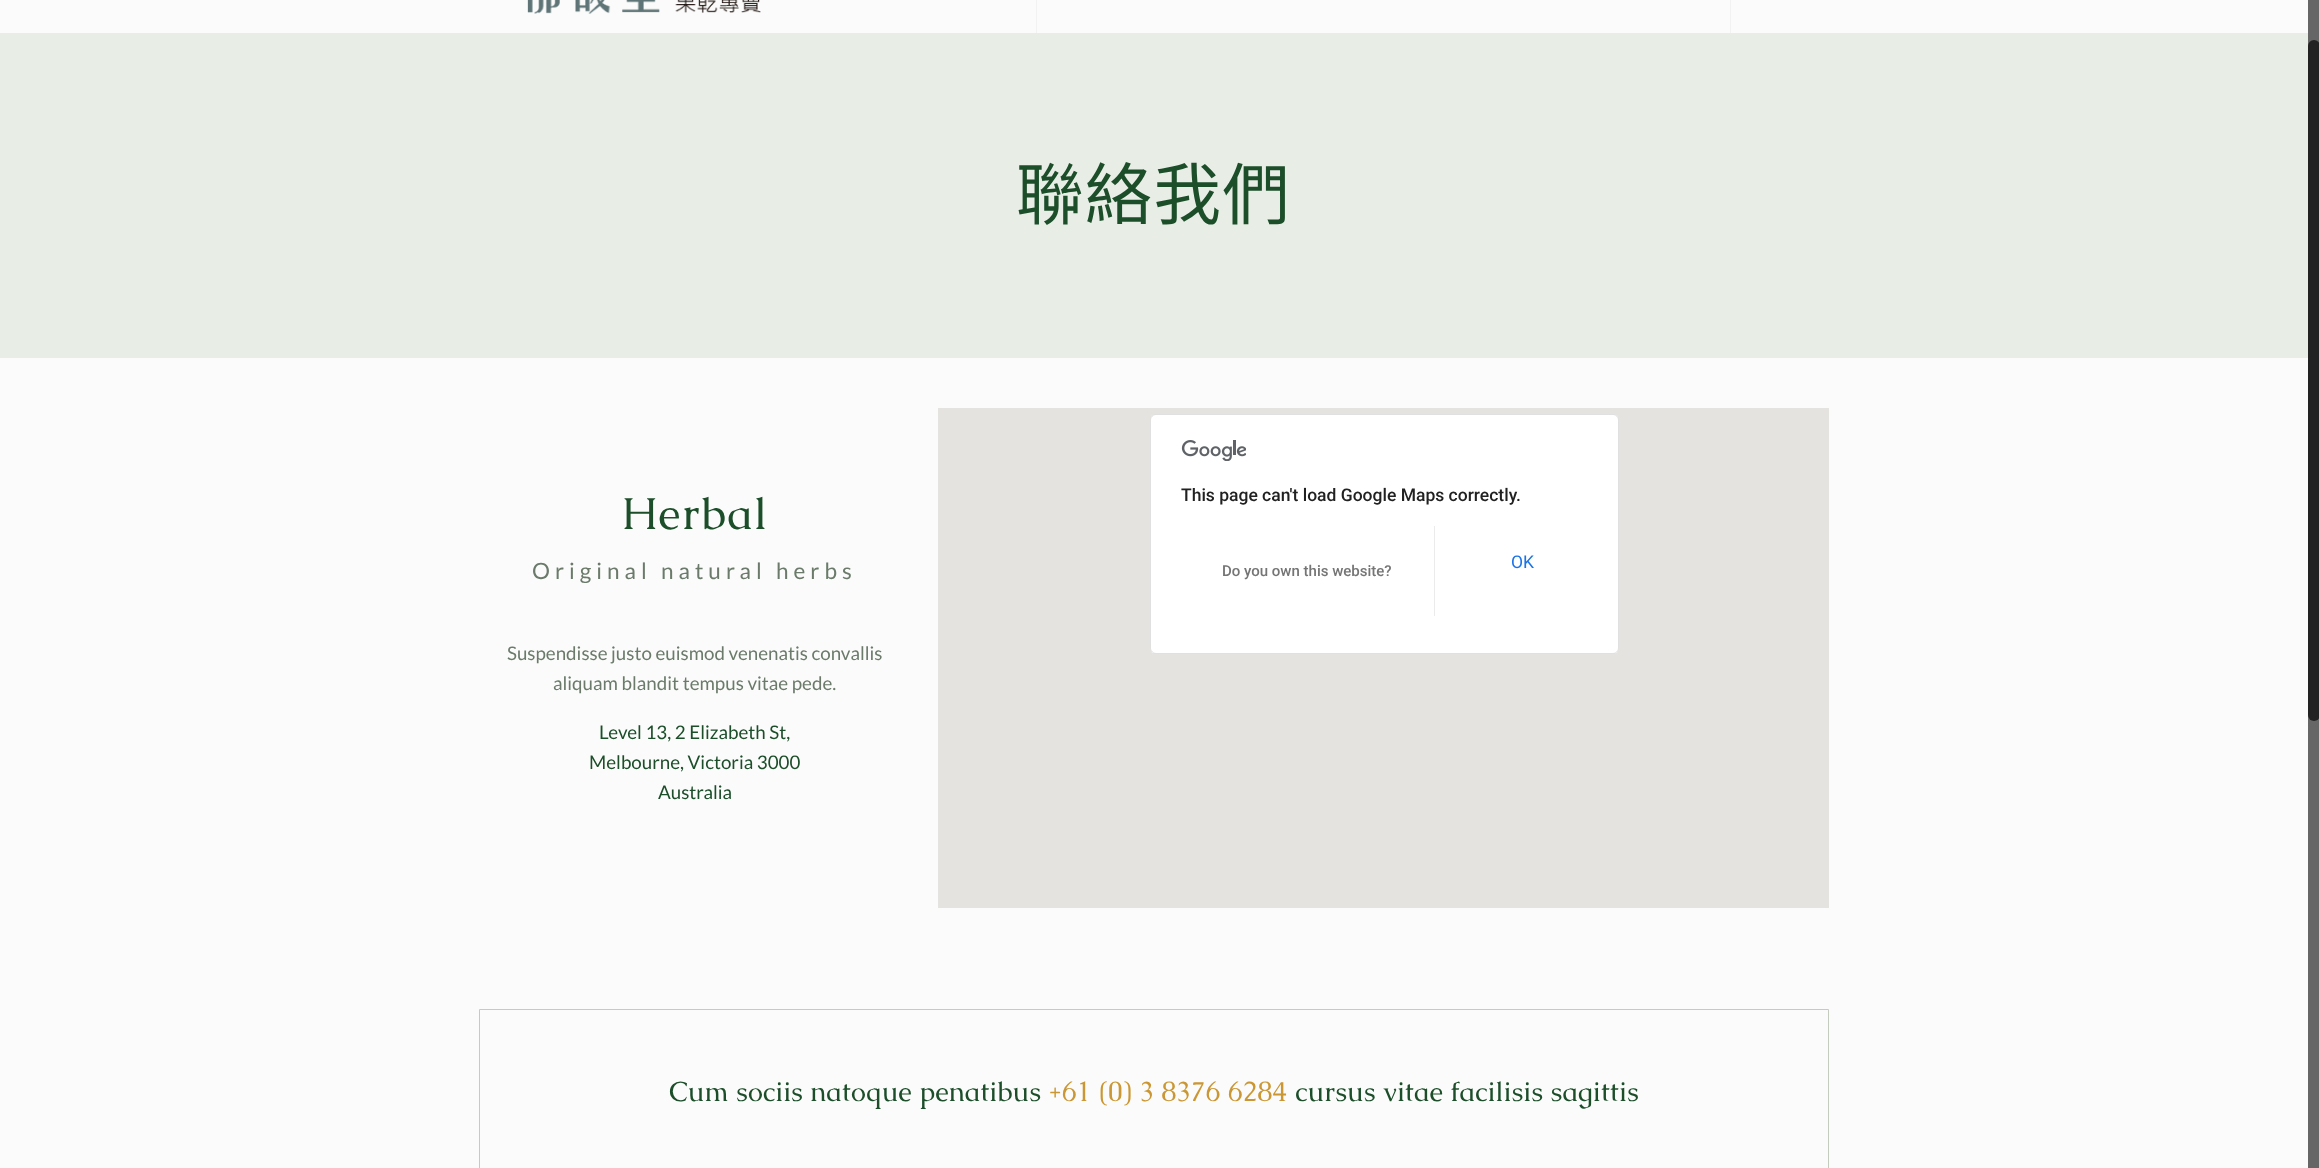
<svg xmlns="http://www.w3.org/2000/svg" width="2319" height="1168">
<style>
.a{font:67.5px Noto Sans CJK TC;letter-spacing:1.25px;fill:#1c4e2a}
.b{font:45px Caudex;letter-spacing:1.25px;fill:#1c4e2a}
.c{font:22.5px Lato;letter-spacing:5px;fill:#6b7a6b}
.d{font:18.75px Lato;fill:#6b7a6b}
.e{font:18.75px Lato;fill:#1c4e2a}
.f{font:500 17.5px Roboto;fill:#212121}
.g{font:17.5px Roboto;fill:#1a73e8}
.h{font:500 15px Roboto;fill:#757575}
.i{font:27.5px Caudex;fill:#1c4e2a}
.j{font:27.5px Caudex;fill:#cb9734}
</style>
<rect width="100%" height="100%" fill="#fafbfa"/>
<image href="1.png" x="527" y="0" width="234" height="14"/>
<path fill="#f2f2f2" d="M1036 0h1v33H1036z"/>
<path fill="#f2f2f2" d="M1730 0h1v33H1730z"/>
<path fill="#e8ede6" d="M0 33h2308v325H0z"/>
<path fill="#e5e3df" d="M938 408h891v500H938z"/>
<rect fill="#fff" x="1150" y="414" width="469" height="240" rx="6"/>
<rect fill="none" stroke="#0000001f" x="1150.5" y="414.5" width="468" height="239" rx="5.5"/>
<image href="2.png" x="1181" y="440" width="65" height="21"/>
<path fill="#ebebeb" d="M1434 526h1v90H1434z"/>
<path fill="none" stroke="#c4ccc0" d="M479.5 1009.5h1349v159H479.5z"/>
<path fill="#666" d="M2308 0h11v1168H2308z"/>
<rect fill="#222" x="2308" y="40" width="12" height="681" rx="6"/>
<text class="a" x="1016" y="219">聯絡我們</text>
<text class="b" x="621" y="529">Herbal</text>
<text class="c" x="532" y="579">Original natural herbs</text>
<text class="d" x="507" y="660">Suspendisse justo euismod venenatis convallis</text>
<text class="d" x="553" y="690">aliquam blandit tempus vitae pede.</text>
<text class="e" x="599" y="739">Level 13, 2 Elizabeth St,</text>
<text class="e" x="589" y="769">Melbourne, Victoria 3000</text>
<text class="e" x="658" y="799">Australia</text>
<text class="f" x="1181" y="501">This page can't load Google Maps correctly.</text>
<text class="g" x="1511" y="568">OK</text>
<text class="h" x="1222" y="576">Do you own this website?</text>
<text class="i" x="669" y="1101">Cum sociis natoque penatibus</text>
<text class="j" x="1048" y="1101">+61 (0) 3 8376 6284</text>
<text class="i" x="1295" y="1101">cursus vitae facilisis sagittis</text>
</svg>
